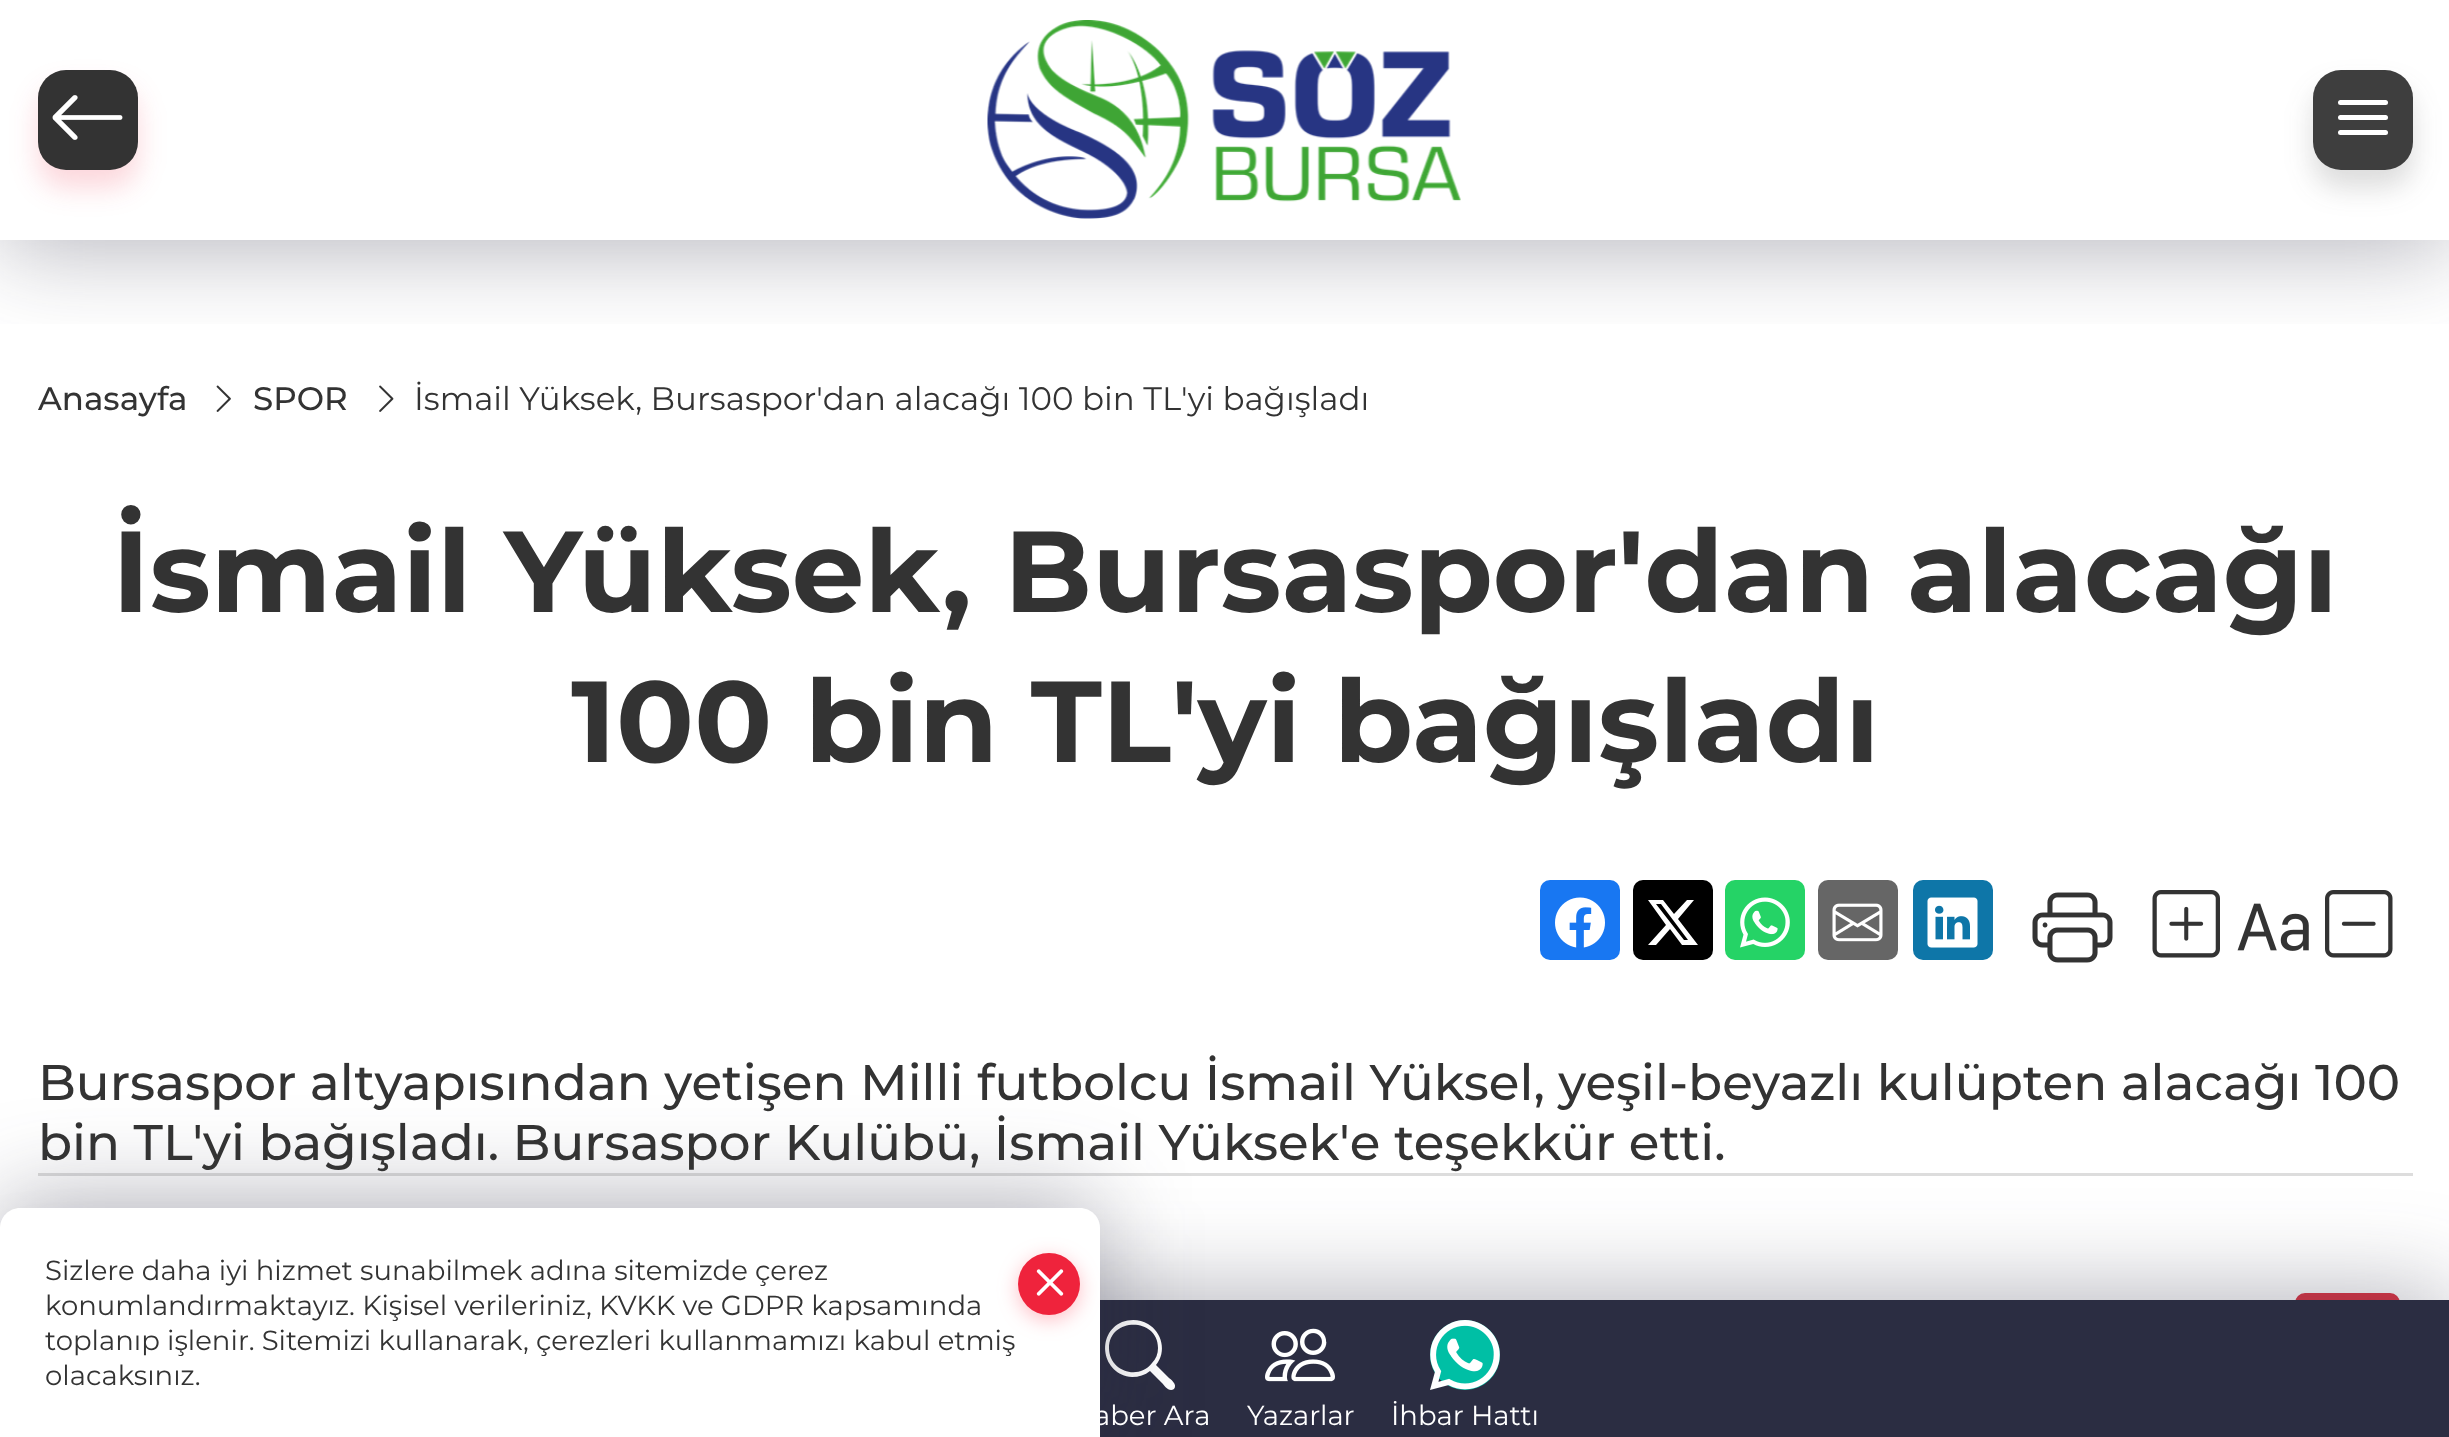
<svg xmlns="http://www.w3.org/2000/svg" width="2449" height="1437">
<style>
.a{font:500 32.5px Montserrat;fill:#333}
.b{font:32.5px Montserrat;fill:#333}
.c{font:bold 115px Montserrat;fill:#333}
.d{font:500 50px Montserrat;fill:#333}
.e{font:27.5px Montserrat;fill:#fff}
.f{font:27.5px Montserrat;fill:#333}
</style>
<defs>
<clipPath id="clip1"><path d="M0 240h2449v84H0z"/></clipPath>
</defs>
<rect width="100%" height="100%" fill="#fff"/>
<image href="3.png" x="216" y="385" width="15" height="27"/>
<image href="4.png" x="379" y="385" width="15" height="27"/>
<g clip-path="url(#clip1)">
<path fill="#2b2d425c" filter="blur(47.5px)" d="M0 8h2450v240H0z"/>
</g>
<rect fill="#ef233c2e" filter="blur(14px)" x="38" y="88" width="100" height="100" rx="28"/>
<rect fill="#333" x="38" y="70" width="100" height="100" rx="28"/>
<image href="1.png" x="52" y="95" width="71" height="45"/>
<image href="2.png" x="987" y="20" width="474" height="199"/>
<rect fill="#3e3e3e2e" filter="blur(14px)" x="2313" y="88" width="100" height="100" rx="28"/>
<rect fill="#3e3e3e" x="2313" y="70" width="100" height="100" rx="28"/>
<rect fill="#fff" x="2338" y="115" width="50" height="5" rx="2.5"/>
<rect fill="#fff" x="2338" y="100" width="50" height="5" rx="2.5"/>
<rect fill="#fff" x="2338" y="130" width="50" height="5" rx="2.5"/>
<rect fill="#1877f2" x="1540" y="880" width="80" height="80" rx="10"/>
<image href="5.png" x="1555" y="897" width="50" height="51"/>
<rect fill="#000" x="1633" y="880" width="80" height="80" rx="10"/>
<path fill="#fff" d="M1687 900h7l-16 19l20 26h-16l-12-16l-14 16h-8l18-20l-18-25h15l11 14zm-3 40h4l-27-36h-5z"/>
<rect fill="#25d366" x="1725" y="880" width="80" height="80" rx="10"/>
<image href="6.png" x="1740" y="897" width="50" height="51"/>
<rect fill="#666" x="1818" y="880" width="80" height="80" rx="10"/>
<image href="7.png" x="1832" y="903" width="51" height="39"/>
<rect fill="#0e76a8" x="1913" y="880" width="80" height="80" rx="10"/>
<image href="8.png" x="1927" y="897" width="51" height="51"/>
<image href="9.png" x="2032" y="892" width="81" height="71"/>
<image href="10.png" x="2152" y="890" width="68" height="68"/>
<image href="11.png" x="2237" y="903" width="72" height="48"/>
<image href="12.png" x="2325" y="890" width="68" height="68"/>
<path fill="#ddd" d="M38 1173h2375v3H38z"/>
<rect fill="#dc3545" stroke="#dc3545" stroke-width="3" x="2296.5" y="1294.5" width="102" height="92" rx="8.5"/>
<path fill="#2b2d425c" filter="blur(47.5px)" d="M0 1293h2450v137H0z"/>
<path fill="#2b2d42" d="M1100 1300h1349v137H1100z"/>
<path fill="#fff" d="M1156 1365c11-13 6-33-8-41c-8-5-18-5-26-2c-27 12-20 53 10 55c7 0 13-2 18-6l12 12c2 2 7 10 12 6c4-5-4-10-6-12zm2-17c0 6-2 11-6 15c-14 18-43 8-43-15c0-31 49-31 49 0z"/>
<image href="13.png" x="1265" y="1328" width="70" height="54"/>
<circle fill="#00bfa5" cx="1465" cy="1355" r="35"/>
<image href="14.png" x="1430" y="1320" width="70" height="70"/>
<rect fill="#2b2d425c" filter="blur(47.5px)" y="1200" width="1100" height="230" rx="20"/>
<path fill="#fff" d="M20 1208h1060c11 0 20 9 20 20v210h-1100v-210c0-11 9-20 20-20z"/>
<rect fill="#ff566a61" filter="blur(10px)" x="1018" y="1258" width="62" height="62" rx="31"/>
<circle fill="#ef233c" cx="1049" cy="1284" r="31"/>
<image href="15.png" x="1036" y="1269" width="28" height="27"/>
<text class="a" x="38" y="410">Anasayfa</text>
<text class="a" x="253" y="410">SPOR</text>
<text class="b" x="414" y="410">İsmail Yüksek, Bursaspor'dan alacağı 100 bin TL'yi bağışladı</text>
<text class="c" x="112" y="612">İsmail Yüksek, Bursaspor'dan alacağı</text>
<text class="c" x="571" y="762">100 bin TL'yi bağışladı</text>
<text class="d" x="38" y="1100">Bursaspor altyapısından yetişen Milli futbolcu İsmail Yüksel, yeşil-beyazlı kulüpten alacağı 100</text>
<text class="d" x="38" y="1160">bin TL'yi bağışladı. Bursaspor Kulübü, İsmail Yüksek'e teşekkür etti.</text>
<text class="e" x="1094" y="1425">aber Ara</text>
<text class="e" x="1247" y="1425">Yazarlar</text>
<text class="e" x="1391" y="1425">İhbar Hattı</text>
<text class="f" x="45" y="1280">Sizlere daha iyi hizmet sunabilmek adına sitemizde çerez</text>
<text class="f" x="45" y="1315">konumlandırmaktayız. Kişisel verileriniz, KVKK ve GDPR kapsamında</text>
<text class="f" x="45" y="1350">toplanıp işlenir. Sitemizi kullanarak, çerezleri kullanmamızı kabul etmiş</text>
<text class="f" x="45" y="1385">olacaksınız.</text>
</svg>
